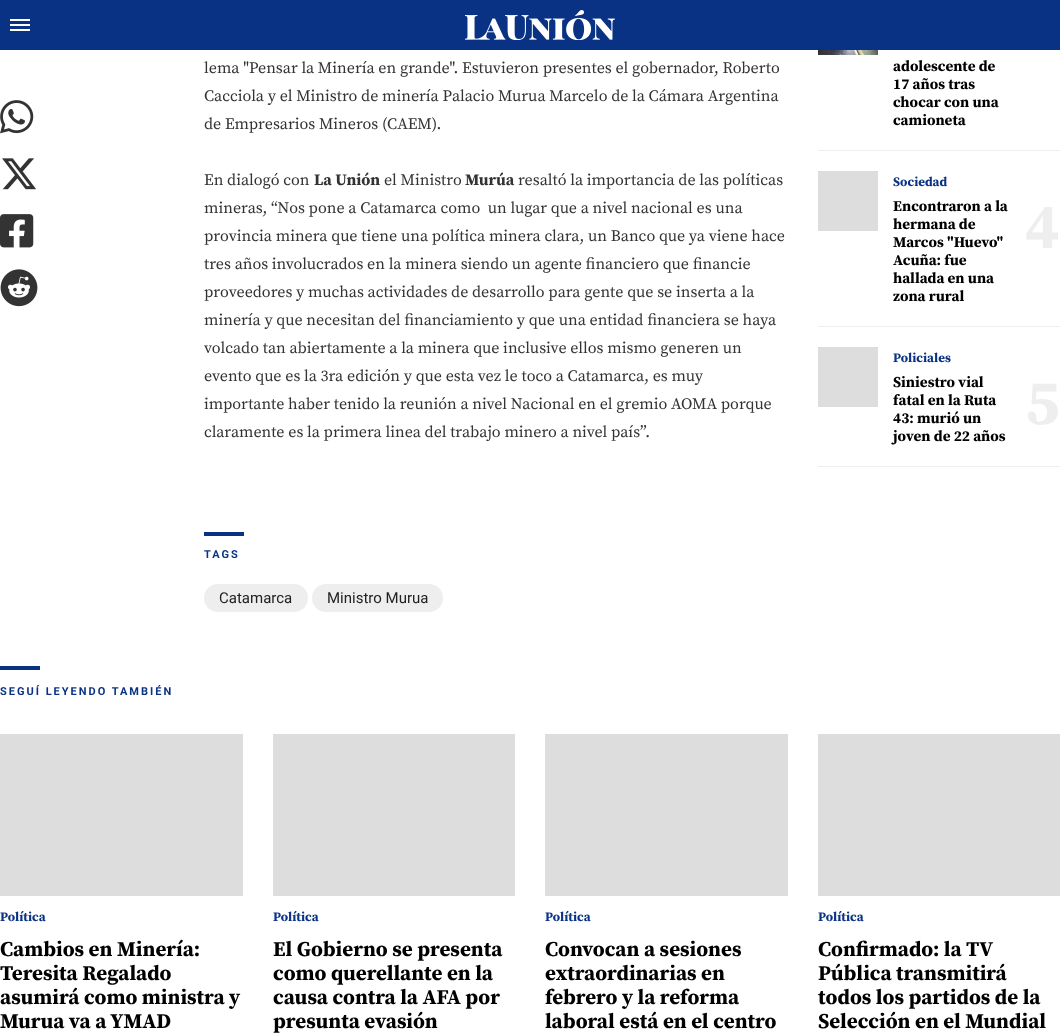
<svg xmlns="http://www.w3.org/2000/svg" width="1060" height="1036">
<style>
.a{font:16px Source Serif Pro;fill:#333}
.b{font:bold 16px Source Serif Pro;fill:#333}
.c{font:bold 11px Roboto;letter-spacing:2px;fill:#093284}
.d{font:15px Roboto;fill:#222}
.e{font:bold 15px Source Serif Pro;fill:#000}
.f{font:bold 13px Source Serif Pro;fill:#093284}
.g{font:bold 64px Source Serif Pro;fill:#eee}
.h{font:bold 21px Source Serif Pro;fill:#000}
</style>
<rect width="100%" height="100%" fill="#fff"/>
<path fill="#093284" d="M0 0h1060v50H0z"/>
<path fill="#fff" d="M10 19h20v2H10z"/>
<path fill="#fff" d="M10 24h20v2H10z"/>
<path fill="#fff" d="M10 29h20v2H10z"/>
<image href="1.png" x="465" y="10" width="150" height="30"/>
<image href="2.png" x="0" y="100" width="34" height="34"/>
<image href="3.png" x="2" y="158" width="34" height="32"/>
<image href="4.png" x="0" y="214" width="34" height="34"/>
<image href="5.png" x="0" y="269" width="38" height="38"/>
<path fill="#093284" d="M204 532h40v4H204z"/>
<rect fill="#eee" x="204" y="584" width="104" height="28" rx="14"/>
<rect fill="#eee" x="312" y="584" width="131" height="28" rx="14"/>
<path fill="#eee" d="M818 150h242v1H818z"/>
<image href="6.png" x="818" y="50" width="60" height="5"/>
<path fill="#eee" d="M818 326h242v1H818z"/>
<path fill="#ddd" d="M818 171h60v60H818z"/>
<path fill="#eee" d="M818 466h242v1H818z"/>
<path fill="#ddd" d="M818 347h60v60H818z"/>
<path fill="#093284" d="M0 666h40v4H0z"/>
<path fill="#ddd" d="M0 734h243v162H0z"/>
<path fill="#ddd" d="M273 734h242v162H273z"/>
<path fill="#ddd" d="M545 734h243v162H545z"/>
<path fill="#ddd" d="M818 734h242v162H818z"/>
<text class="a" x="204" y="73">lema "Pensar la Minería en grande". Estuvieron presentes el gobernador, Roberto</text>
<text class="a" x="204" y="101">Cacciola y el Ministro de minería Palacio Murua Marcelo de la Cámara Argentina</text>
<text class="a" x="204" y="129">de Empresarios Mineros (CAEM).</text>
<text class="a" x="204" y="185">En dialogó con</text>
<text class="b" x="314" y="185">La Unión</text>
<text class="a" x="384" y="185">el Ministro</text>
<text class="b" x="465" y="185">Murúa</text>
<text class="a" x="518" y="185">resaltó la importancia de las políticas</text>
<text class="a" xml:space="preserve" x="204" y="213">mineras, “Nos pone a Catamarca como  un lugar que a nivel nacional es una</text>
<text class="a" x="204" y="241">provincia minera que tiene una política minera clara, un Banco que ya viene hace</text>
<text class="a" x="204" y="269">tres años involucrados en la minera siendo un agente financiero que financie</text>
<text class="a" x="204" y="297">proveedores y muchas actividades de desarrollo para gente que se inserta a la</text>
<text class="a" x="204" y="325">minería y que necesitan del financiamiento y que una entidad financiera se haya</text>
<text class="a" x="204" y="353">volcado tan abiertamente a la minera que inclusive ellos mismo generen un</text>
<text class="a" x="204" y="381">evento que es la 3ra edición y que esta vez le toco a Catamarca, es muy</text>
<text class="a" x="204" y="409">importante haber tenido la reunión a nivel Nacional en el gremio AOMA porque</text>
<text class="a" x="204" y="437">claramente es la primera linea del trabajo minero a nivel país”.</text>
<text class="c" x="204" y="558">TAGS</text>
<text class="d" x="219" y="603">Catamarca</text>
<text class="d" x="327" y="603">Ministro Murua</text>
<text class="e" x="893" y="71">adolescente de</text>
<text class="e" x="893" y="89">17 años tras</text>
<text class="e" x="893" y="107">chocar con una</text>
<text class="e" x="893" y="125">camioneta</text>
<text class="f" x="893" y="186">Sociedad</text>
<text class="e" x="893" y="211">Encontraron a la</text>
<text class="e" x="893" y="229">hermana de</text>
<text class="e" x="893" y="247">Marcos "Huevo"</text>
<text class="e" x="893" y="265">Acuña: fue</text>
<text class="e" x="893" y="283">hallada en una</text>
<text class="e" x="893" y="301">zona rural</text>
<text class="g" x="1025" y="248">4</text>
<text class="f" x="893" y="362">Policiales</text>
<text class="e" x="893" y="387">Siniestro vial</text>
<text class="e" x="893" y="405">fatal en la Ruta</text>
<text class="e" x="893" y="423">43: murió un</text>
<text class="e" x="893" y="441">joven de 22 años</text>
<text class="g" x="1025" y="424">5</text>
<text class="c" x="0" y="695">SEGUÍ LEYENDO TAMBIÉN</text>
<text class="f" x="0" y="921">Política</text>
<text class="h" x="0" y="956">Cambios en Minería:</text>
<text class="h" x="0" y="980">Teresita Regalado</text>
<text class="h" x="0" y="1004">asumirá como ministra y</text>
<text class="h" x="0" y="1028">Murua va a YMAD</text>
<text class="f" x="273" y="921">Política</text>
<text class="h" x="273" y="956">El Gobierno se presenta</text>
<text class="h" x="273" y="980">como querellante en la</text>
<text class="h" x="273" y="1004">causa contra la AFA por</text>
<text class="h" x="273" y="1028">presunta evasión</text>
<text class="f" x="545" y="921">Política</text>
<text class="h" x="545" y="956">Convocan a sesiones</text>
<text class="h" x="545" y="980">extraordinarias en</text>
<text class="h" x="545" y="1004">febrero y la reforma</text>
<text class="h" x="545" y="1028">laboral está en el centro</text>
<text class="f" x="818" y="921">Política</text>
<text class="h" x="818" y="956">Confirmado: la TV</text>
<text class="h" x="818" y="980">Pública transmitirá</text>
<text class="h" x="818" y="1004">todos los partidos de la</text>
<text class="h" x="818" y="1028">Selección en el Mundial</text>
</svg>
